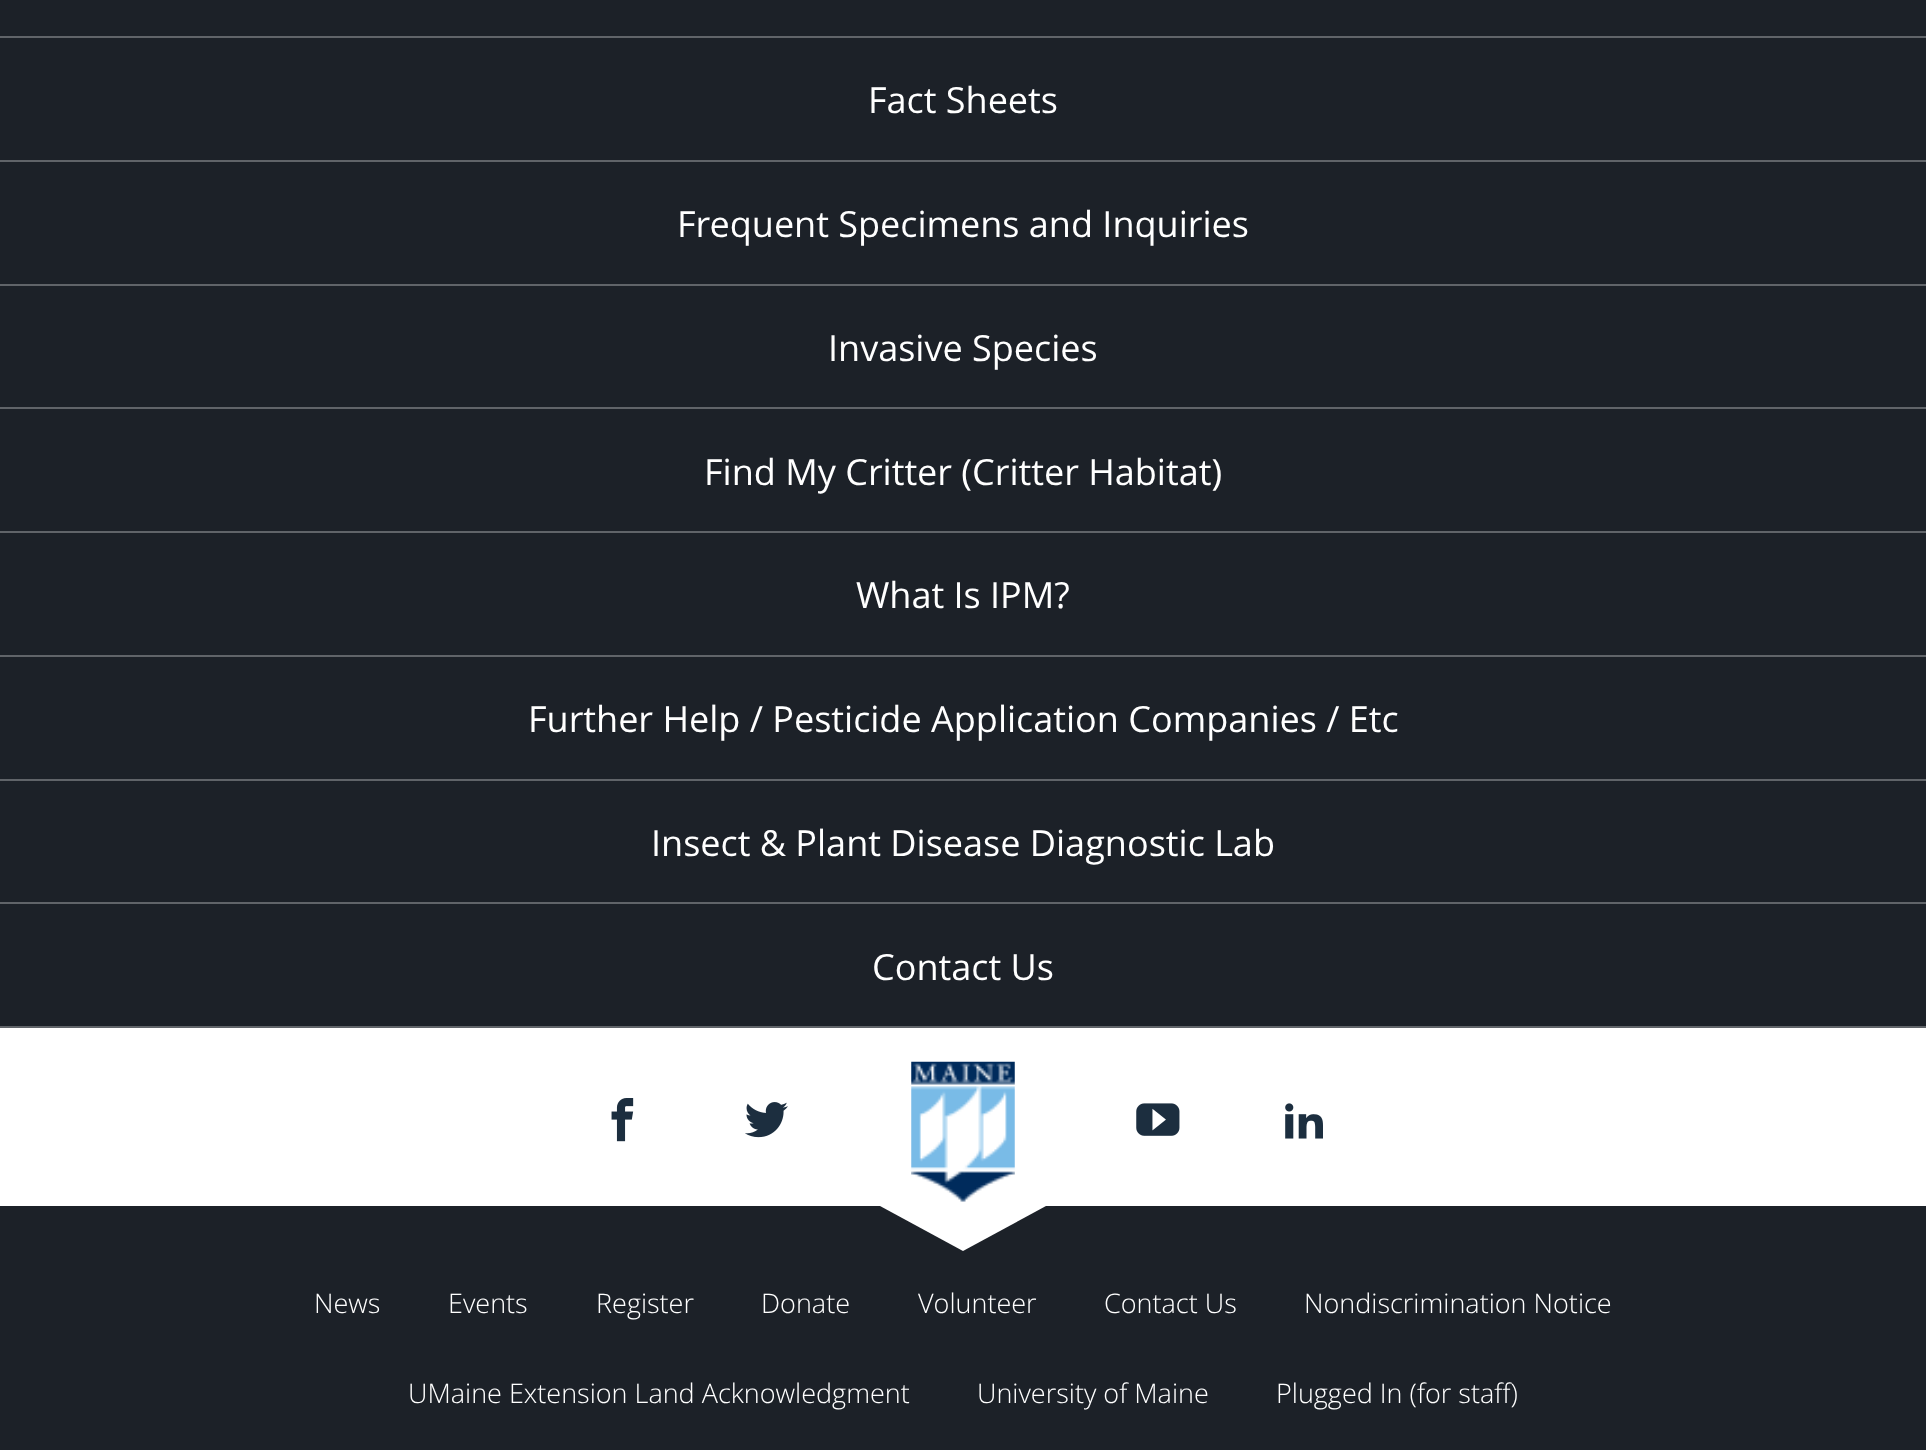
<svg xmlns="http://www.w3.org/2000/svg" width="1926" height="1450">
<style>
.a{font:36px Open Sans;fill:#fff}
.b{font:300 27px Open Sans;fill:#fff}
</style>
<rect width="100%" height="100%" fill="#fff"/>
<path fill="#1c2128" d="M0 0h1926v1026H0z"/>
<path fill="#606469" d="M0 36h1926v2H0z"/>
<path fill="#606469" d="M0 160h1926v2H0z"/>
<path fill="#606469" d="M0 284h1926v2H0z"/>
<path fill="#606469" d="M0 407h1926v2H0z"/>
<path fill="#606469" d="M0 531h1926v2H0z"/>
<path fill="#606469" d="M0 655h1926v2H0z"/>
<path fill="#606469" d="M0 779h1926v2H0z"/>
<path fill="#606469" d="M0 902h1926v2H0z"/>
<path fill="#606469" d="M0 1026h1926v2H0z"/>
<image href="1.png" x="911" y="1061" width="104" height="141"/>
<image href="2.png" x="611" y="1098" width="23" height="44"/>
<image href="3.png" x="745" y="1102" width="43" height="36"/>
<image href="4.png" x="1136" y="1103" width="44" height="33"/>
<image href="5.png" x="1285" y="1103" width="38" height="36"/>
<path fill="#1c2128" d="M0 1206h1926v244H0z"/>
<path fill="#fff" d="M880 1206h166l-83 45z"/>
<text class="a" x="868" y="113">Fact Sheets</text>
<text class="a" x="677" y="237">Frequent Specimens and Inquiries</text>
<text class="a" x="828" y="361">Invasive Species</text>
<text class="a" x="704" y="485">Find My Critter (Critter Habitat)</text>
<text class="a" x="856" y="608">What Is IPM?</text>
<text class="a" x="528" y="732">Further Help / Pesticide Application Companies / Etc</text>
<text class="a" x="651" y="856">Insect &amp; Plant Disease Diagnostic Lab</text>
<text class="a" x="872" y="980">Contact Us</text>
<text class="b" x="314" y="1313">News</text>
<text class="b" x="448" y="1313">Events</text>
<text class="b" x="596" y="1313">Register</text>
<text class="b" x="761" y="1313">Donate</text>
<text class="b" x="918" y="1313">Volunteer</text>
<text class="b" x="1104" y="1313">Contact Us</text>
<text class="b" x="1304" y="1313">Nondiscrimination Notice</text>
<text class="b" x="408" y="1403">UMaine Extension Land Acknowledgment</text>
<text class="b" x="977" y="1403">University of Maine</text>
<text class="b" x="1276" y="1403">Plugged In (for staff)</text>
</svg>
